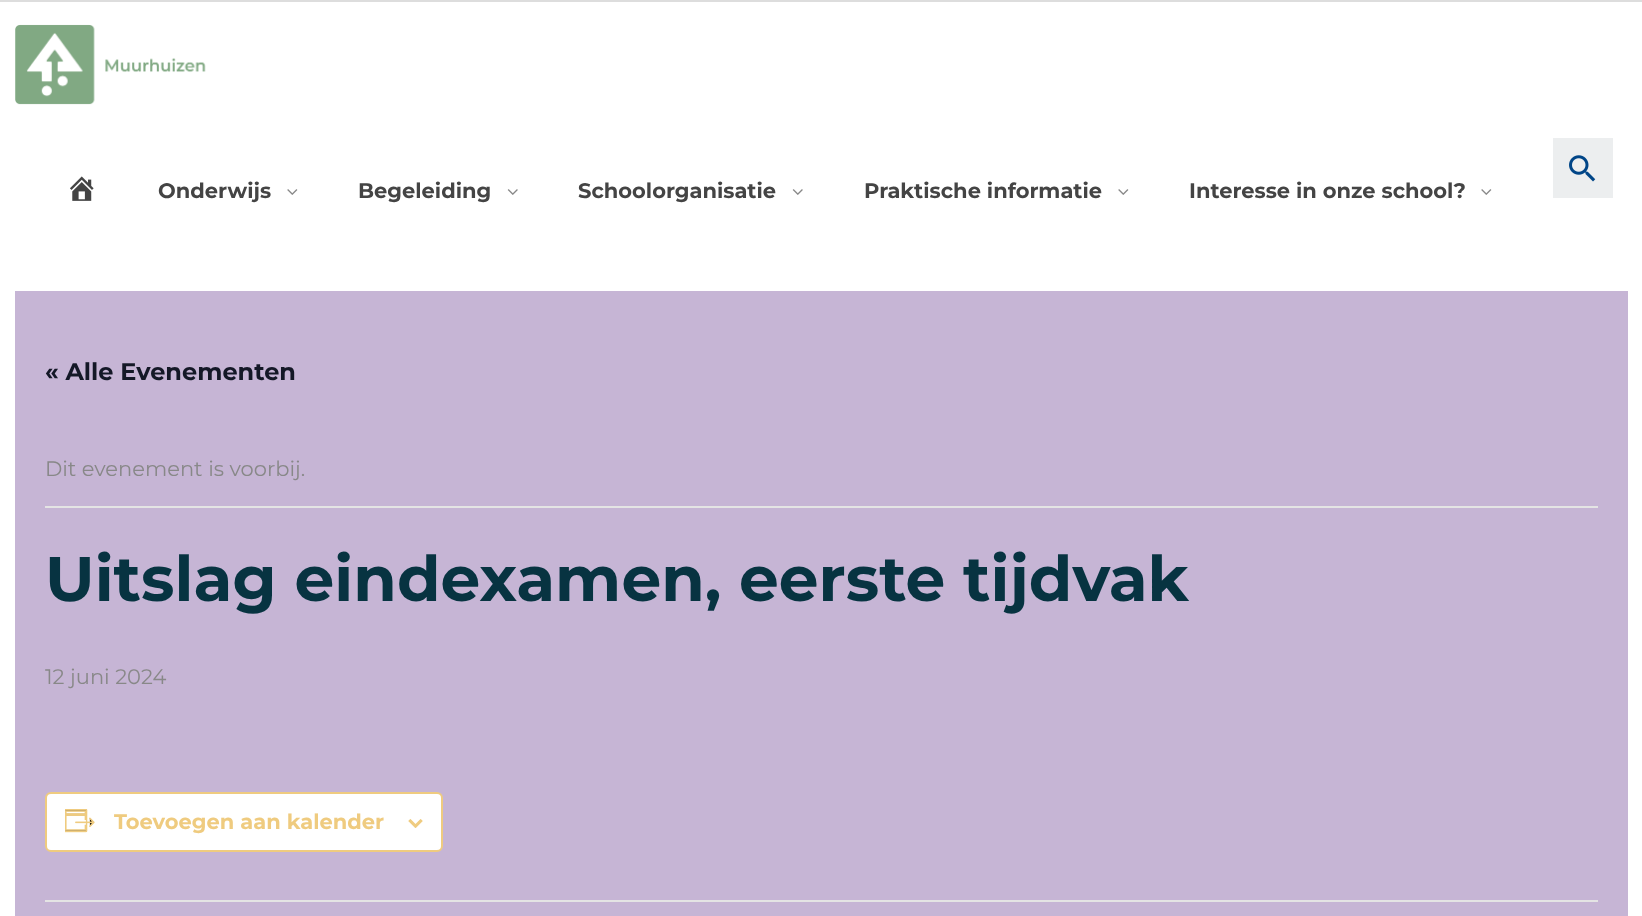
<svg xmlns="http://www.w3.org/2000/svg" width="1642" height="916">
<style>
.a{font:bold 21px Montserrat;fill:#444}
.b{font:bold 24px Montserrat;fill:#141827}
.c{font:21px Montserrat;fill:#888}
.d{font:bold 63px Montserrat;fill:#073341}
.e{font:bold 21px Montserrat;fill:#efcb7f}
</style>
<rect width="100%" height="100%" fill="#fff"/>
<path fill="#ddd" d="M0 0h1642v2H0z"/>
<image href="1.png" x="15" y="24" width="191" height="81"/>
<image href="2.png" x="70" y="176" width="24" height="25"/>
<image href="3.png" x="287" y="189" width="11" height="6"/>
<image href="4.png" x="507" y="189" width="11" height="6"/>
<image href="4.png" x="792" y="189" width="11" height="6"/>
<image href="3.png" x="1118" y="189" width="11" height="6"/>
<image href="3.png" x="1481" y="189" width="11" height="6"/>
<path fill="#eceeef" d="M1553 138h60v60H1553z"/>
<image href="5.png" x="1569" y="155" width="27" height="27"/>
<path fill="#c6b5d5" d="M15 291h1613v625H15z"/>
<path fill="#e4e4e4" d="M45 506h1553v2H45z"/>
<rect fill="#fff" stroke="#efcb7f" stroke-width="2" x="46" y="793" width="396" height="58" rx="5"/>
<image href="6.png" x="65" y="809" width="30" height="24"/>
<image href="7.png" x="408" y="819" width="15" height="9"/>
<path fill="#e4e4e4" d="M45 900h1553v2H45z"/>
<text class="a" x="158" y="198">Onderwijs</text>
<text class="a" x="358" y="198">Begeleiding</text>
<text class="a" x="578" y="198">Schoolorganisatie</text>
<text class="a" x="864" y="198">Praktische informatie</text>
<text class="a" x="1189" y="198">Interesse in onze school?</text>
<text class="b" x="45" y="380">« Alle Evenementen</text>
<text class="c" x="45" y="476">Dit evenement is voorbij.</text>
<text class="d" x="45" y="601">Uitslag eindexamen, eerste tijdvak</text>
<text class="c" x="45" y="684">12 juni 2024</text>
<text class="e" x="114" y="829">Toevoegen aan kalender</text>
</svg>
